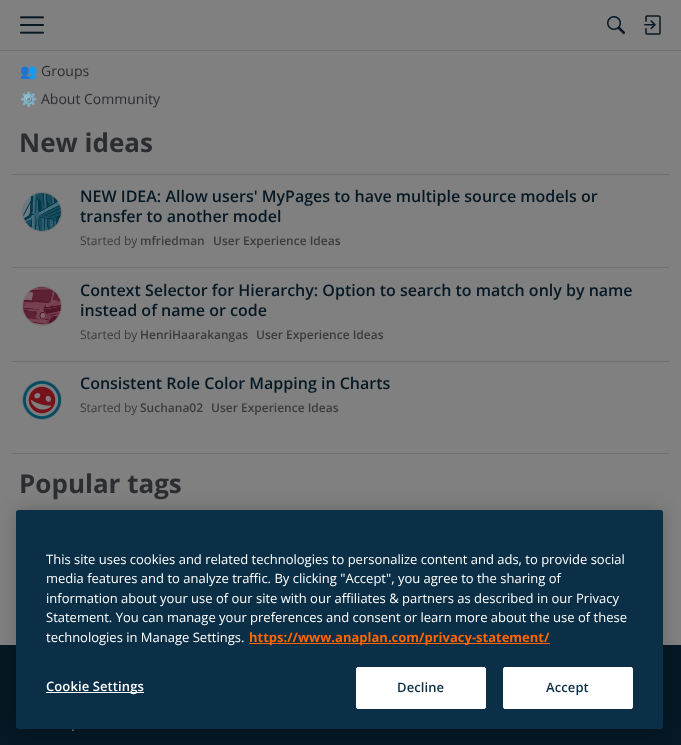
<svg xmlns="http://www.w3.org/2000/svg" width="681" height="745">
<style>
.a{font:14px Noto Color Emoji;fill:#2b2d31}
.b{font:14px Open Sans;fill:#2b2d31}
.c{font:bold 26px Open Sans;fill:#2b2d31}
.d{font:600 16px Open Sans;fill:#051823}
.e{font:12px Open Sans;fill:#3b3b3b}
.f{font:600 12px Open Sans;fill:#3b3b3b}
.g{font:14px Liberation Sans;fill:#808080}
.h{font:13px Open Sans;fill:#fff}
.i{font:bold 13px Open Sans;fill:#f60}
.j{font:600 13px Open Sans;letter-spacing:0.1px;fill:#fff}
.k{font:600 13px Open Sans;letter-spacing:0.1px;fill:#0a2f46}
</style>
<rect width="100%" height="100%" fill="#808080"/>
<path fill="#6f6f70" d="M0 50h681v1H0z"/>
<image href="1.png" x="20" y="16" width="24" height="18"/>
<image href="2.png" x="607" y="16" width="18" height="18"/>
<image href="3.png" x="644" y="15" width="17" height="20"/>
<path fill="#6f6f70" d="M12 174h657v1H12z"/>
<circle fill="none" stroke="#737374" cx="42" cy="212" r="19.5"/>
<image href="4.png" x="23" y="193" width="38" height="38"/>
<path fill="#6f6f70" d="M12 267h657v1H12z"/>
<circle fill="none" stroke="#737374" cx="42" cy="306" r="19.5"/>
<image href="5.png" x="23" y="287" width="38" height="38"/>
<path fill="#6f6f70" d="M12 361h657v1H12z"/>
<circle fill="none" stroke="#737374" cx="42" cy="400" r="19.5"/>
<image href="6.png" x="23" y="381" width="38" height="38"/>
<path fill="#6f6f70" d="M12 453h657v1H12z"/>
<path fill="#051823" d="M0 645h681v100H0z"/>
<rect fill="#00000033" filter="blur(9px)" x="16" y="510" width="647" height="219" rx="2.5"/>
<rect fill="#0a2f46" x="16" y="510" width="647" height="219" rx="2.5"/>
<path fill="#f60" d="M249 643h301v1H249z"/>
<path fill="#fff" d="M46 692h98v1H46z"/>
<rect fill="#fff" stroke="#fff" x="356.5" y="667.5" width="129" height="41" rx="1.5"/>
<rect fill="#fff" stroke="#fff" x="503.5" y="667.5" width="129" height="41" rx="1.5"/>
<text class="a" x="20" y="76">👥</text>
<text class="b" x="41" y="76">Groups</text>
<text class="a" x="20" y="104">⚙️</text>
<text class="b" x="41" y="104">About Community</text>
<text class="c" x="19" y="152">New ideas</text>
<text class="d" x="80" y="202">NEW IDEA: Allow users' MyPages to have multiple source models or</text>
<text class="d" x="80" y="222">transfer to another model</text>
<text class="e" x="80" y="245">Started by</text>
<text class="f" x="140" y="245">mfriedman</text>
<text class="f" x="213" y="245">User Experience Ideas</text>
<text class="d" x="80" y="296">Context Selector for Hierarchy: Option to search to match only by name</text>
<text class="d" x="80" y="316">instead of name or code</text>
<text class="e" x="80" y="339">Started by</text>
<text class="f" x="140" y="339">HenriHaarakangas</text>
<text class="f" x="256" y="339">User Experience Ideas</text>
<text class="d" x="80" y="389">Consistent Role Color Mapping in Charts</text>
<text class="e" x="80" y="412">Started by</text>
<text class="f" x="140" y="412">Suchana02</text>
<text class="f" x="211" y="412">User Experience Ideas</text>
<text class="c" x="19" y="493">Popular tags</text>
<text class="g" x="71" y="731">.</text>
<text class="h" x="46" y="564">This site uses cookies and related technologies to personalize content and ads, to provide social</text>
<text class="h" x="46" y="583">media features and to analyze traffic. By clicking "Accept", you agree to the sharing of</text>
<text class="h" x="46" y="603">information about your use of our site with our affiliates &amp; partners as described in our Privacy</text>
<text class="h" x="46" y="622">Statement. You can manage your preferences and consent or learn more about the use of these</text>
<text class="h" x="46" y="642">technologies in Manage Settings.</text>
<text class="i" x="249" y="642">https://www.anaplan.com/privacy-statement/</text>
<text class="j" x="46" y="691">Cookie Settings</text>
<text class="k" x="397" y="692">Decline</text>
<text class="k" x="546" y="692">Accept</text>
</svg>
